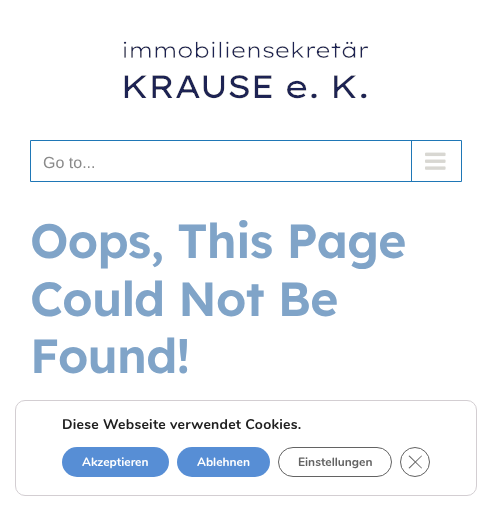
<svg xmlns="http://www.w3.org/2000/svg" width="492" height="511">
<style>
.a{font:16px Liberation Sans;fill:#8a8a8a}
.b{font:600 48px Lexend;letter-spacing:-0.75px;fill:#80a4c8}
.c{font:bold 14px Nunito;letter-spacing:0.25px;fill:#202020}
.d{font:bold 12px Nunito;fill:#fff}
.e{font:bold 12px Nunito;fill:#636363}
</style>
<rect width="100%" height="100%" fill="#fff"/>
<image href="1.png" x="123" y="41" width="246" height="58"/>
<path fill="none" stroke="#1f77b6" d="M30.5 140.5h431v41H30.5z"/>
<path fill="#1f77b6" d="M411 141h1v40H411z"/>
<image href="2.png" x="425" y="152" width="21" height="18"/>
<rect fill="none" stroke="#d3ced2" x="15.5" y="400.5" width="461" height="95" rx="9.5"/>
<rect fill="#578ed5" x="62" y="447" width="107" height="30" rx="15"/>
<rect fill="#578ed5" x="177" y="447" width="93" height="30" rx="15"/>
<rect fill="none" stroke="#636363" x="278.5" y="447.5" width="113" height="29" rx="14.5"/>
<circle fill="none" stroke="#626262" cx="415" cy="462" r="14.5"/>
<path fill="#626262" d="M421.5 455.5l.5 .5l-12.5 12.5l-1-.5z"/>
<path fill="#626262" d="M408.5 456l1-.5l12.5 12.5l-.5 .5z"/>
<text class="a" x="43" y="168">Go to...</text>
<text class="b" x="30" y="258">Oops, This Page</text>
<text class="b" x="30" y="316">Could Not Be</text>
<text class="b" x="30" y="373">Found!</text>
<text class="c" x="62" y="429">Diese Webseite verwendet Cookies.</text>
<text class="d" x="82" y="466">Akzeptieren</text>
<text class="d" x="197" y="466">Ablehnen</text>
<text class="e" x="298" y="466">Einstellungen</text>
</svg>
